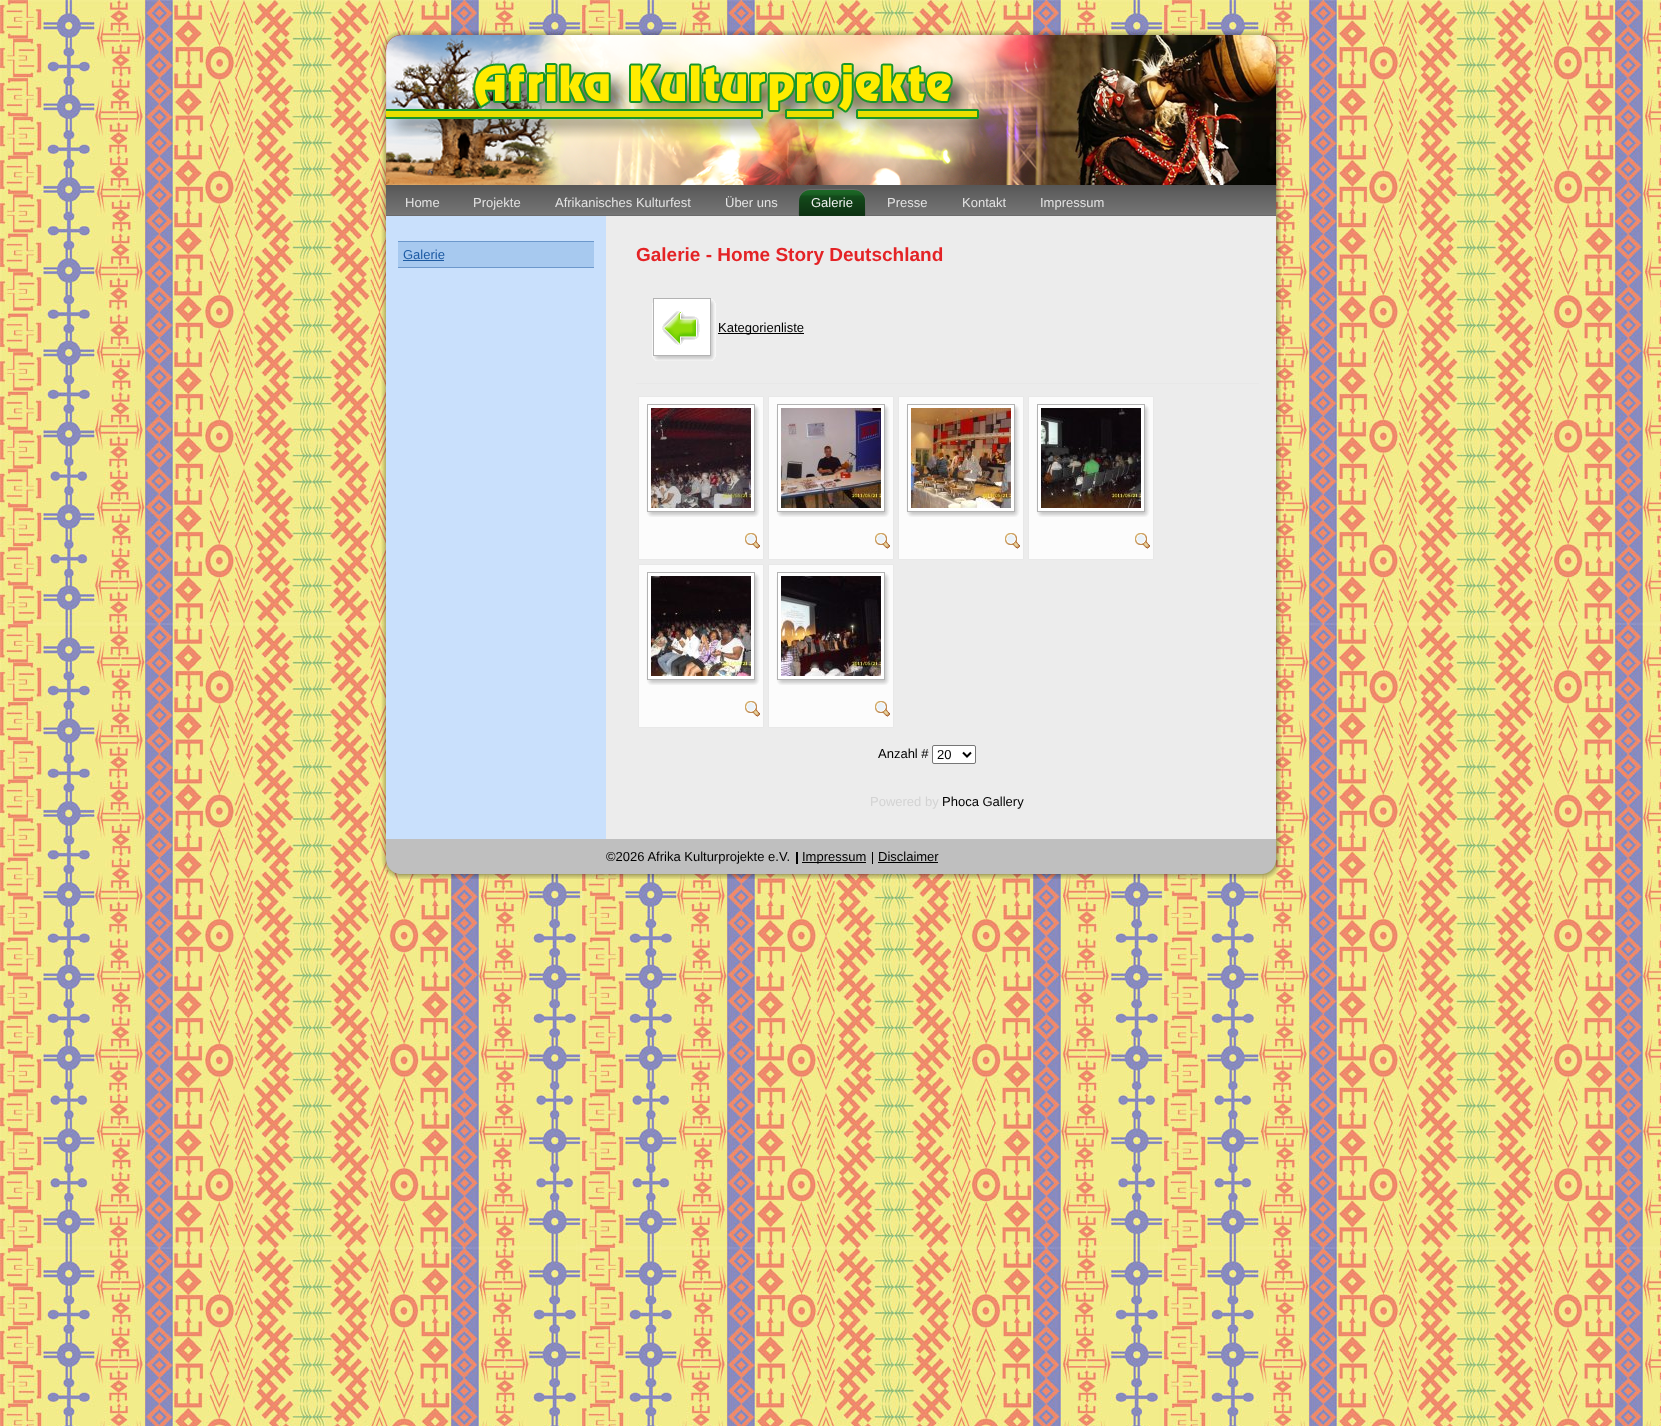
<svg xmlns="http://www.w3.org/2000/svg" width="1661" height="1426">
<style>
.a{font:13px Liberation Sans;fill:#e3e3e3}
.b{font:13px Liberation Sans;fill:#f0f0f0}
.c{font:13px Liberation Sans;fill:#1d5ba3}
.d{font:bold 19px Liberation Sans;fill:#e42326}
.e{font:13px Liberation Sans;fill:#000}
.f{font:13px Liberation Sans;fill:#d3d3d3}
</style>
<rect width="100%" height="100%" fill="#fff"/>
<image href="1.png" x="0" y="0" width="1661" height="1426"/>
<image href="2.png" x="381" y="30" width="35" height="35"/>
<image href="3.png" x="416" y="30" width="830" height="5"/>
<image href="4.png" x="1246" y="30" width="35" height="35"/>
<image href="5.png" x="381" y="65" width="5" height="779"/>
<image href="6.png" x="386" y="35" width="890" height="150"/>
<image href="7.png" x="386" y="185" width="890" height="31"/>
<image href="8.png" x="798" y="189" width="56" height="27"/>
<image href="9.png" x="854" y="189" width="12" height="27"/>
<path fill="#c9e0fc" d="M386 216h220v623H386z"/>
<path fill="#a7c9ef" d="M398 242h196v25H398z"/>
<path fill="#6c98cc" d="M398 241h196v1H398z"/>
<path fill="#6c98cc" d="M398 267h196v1H398z"/>
<path fill="#1d5ba3" d="M403 260h41v1H403z"/>
<path fill="#ececec" d="M606 216h670v623H606z"/>
<image href="10.png" x="652" y="298" width="64" height="63"/>
<image href="11.png" x="662" y="311" width="38" height="34"/>
<path fill="#000" d="M718 333h86v1H718z"/>
<path fill="#e8e8e8" d="M636 383h623v1H636z"/>
<path fill="#fcfcfc" stroke="#e8e8e8" d="M638.5 396.5h125v163H638.5z"/>
<image href="12.png" x="646" y="404" width="114" height="113"/>
<image href="13.png" x="651" y="408" width="100" height="100"/>
<image href="14.png" x="745" y="533" width="15" height="16"/>
<path fill="#fcfcfc" stroke="#e8e8e8" d="M768.5 396.5h125v163H768.5z"/>
<image href="12.png" x="776" y="404" width="114" height="113"/>
<image href="15.png" x="781" y="408" width="100" height="100"/>
<image href="14.png" x="875" y="533" width="15" height="16"/>
<path fill="#fcfcfc" stroke="#e8e8e8" d="M898.5 396.5h125v163H898.5z"/>
<image href="12.png" x="906" y="404" width="114" height="113"/>
<image href="16.png" x="911" y="408" width="100" height="100"/>
<image href="14.png" x="1005" y="533" width="15" height="16"/>
<path fill="#fcfcfc" stroke="#e8e8e8" d="M1028.5 396.5h125v163H1028.5z"/>
<image href="12.png" x="1036" y="404" width="114" height="113"/>
<image href="17.png" x="1041" y="408" width="100" height="100"/>
<image href="14.png" x="1135" y="533" width="15" height="16"/>
<path fill="#fcfcfc" stroke="#e8e8e8" d="M638.5 564.5h125v163H638.5z"/>
<image href="12.png" x="646" y="572" width="114" height="113"/>
<image href="18.png" x="651" y="576" width="100" height="100"/>
<image href="14.png" x="745" y="701" width="15" height="16"/>
<path fill="#fcfcfc" stroke="#e8e8e8" d="M768.5 564.5h125v163H768.5z"/>
<image href="12.png" x="776" y="572" width="114" height="113"/>
<image href="19.png" x="781" y="576" width="100" height="100"/>
<image href="14.png" x="875" y="701" width="15" height="16"/>
<rect fill="#fff" stroke="#767676" x="932.5" y="745.5" width="43" height="18" rx="1.5"/>
<path fill="none" stroke="#000" stroke-width="2" d="M963 752.5l4 4l4-4"/>
<image href="22.png" x="381" y="844" width="35" height="35"/>
<image href="24.png" x="1246" y="844" width="35" height="35"/>
<image href="20.png" x="386" y="839" width="890" height="35"/>
<path fill="#000" d="M796 852h2v12H796z"/>
<path fill="#000" d="M802 862h64v1H802z"/>
<path fill="#000" d="M872 852h1v12H872z"/>
<path fill="#000" d="M878 862h60v1H878z"/>
<image href="21.png" x="1276" y="65" width="5" height="779"/>
<image href="23.png" x="416" y="874" width="830" height="5"/>
<text class="a" x="405" y="207">Home</text>
<text class="a" x="473" y="207">Projekte</text>
<text class="a" x="555" y="207">Afrikanisches Kulturfest</text>
<text class="a" x="725" y="207">Über uns</text>
<text class="b" x="811" y="207">Galerie</text>
<text class="a" x="887" y="207">Presse</text>
<text class="a" x="962" y="207">Kontakt</text>
<text class="a" x="1040" y="207">Impressum</text>
<text class="c" x="403" y="259">Galerie</text>
<text class="d" x="636" y="261">Galerie - Home Story Deutschland</text>
<text class="e" x="718" y="332">Kategorienliste</text>
<text class="e" x="878" y="758">Anzahl #</text>
<text class="e" x="937" y="759">20</text>
<text class="f" x="870" y="806">Powered by</text>
<text class="e" x="942" y="806">Phoca Gallery</text>
<text class="e" x="606" y="861">©2026 Afrika Kulturprojekte e.V.</text>
<text class="e" x="802" y="861">Impressum</text>
<text class="e" x="878" y="861">Disclaimer</text>
</svg>
